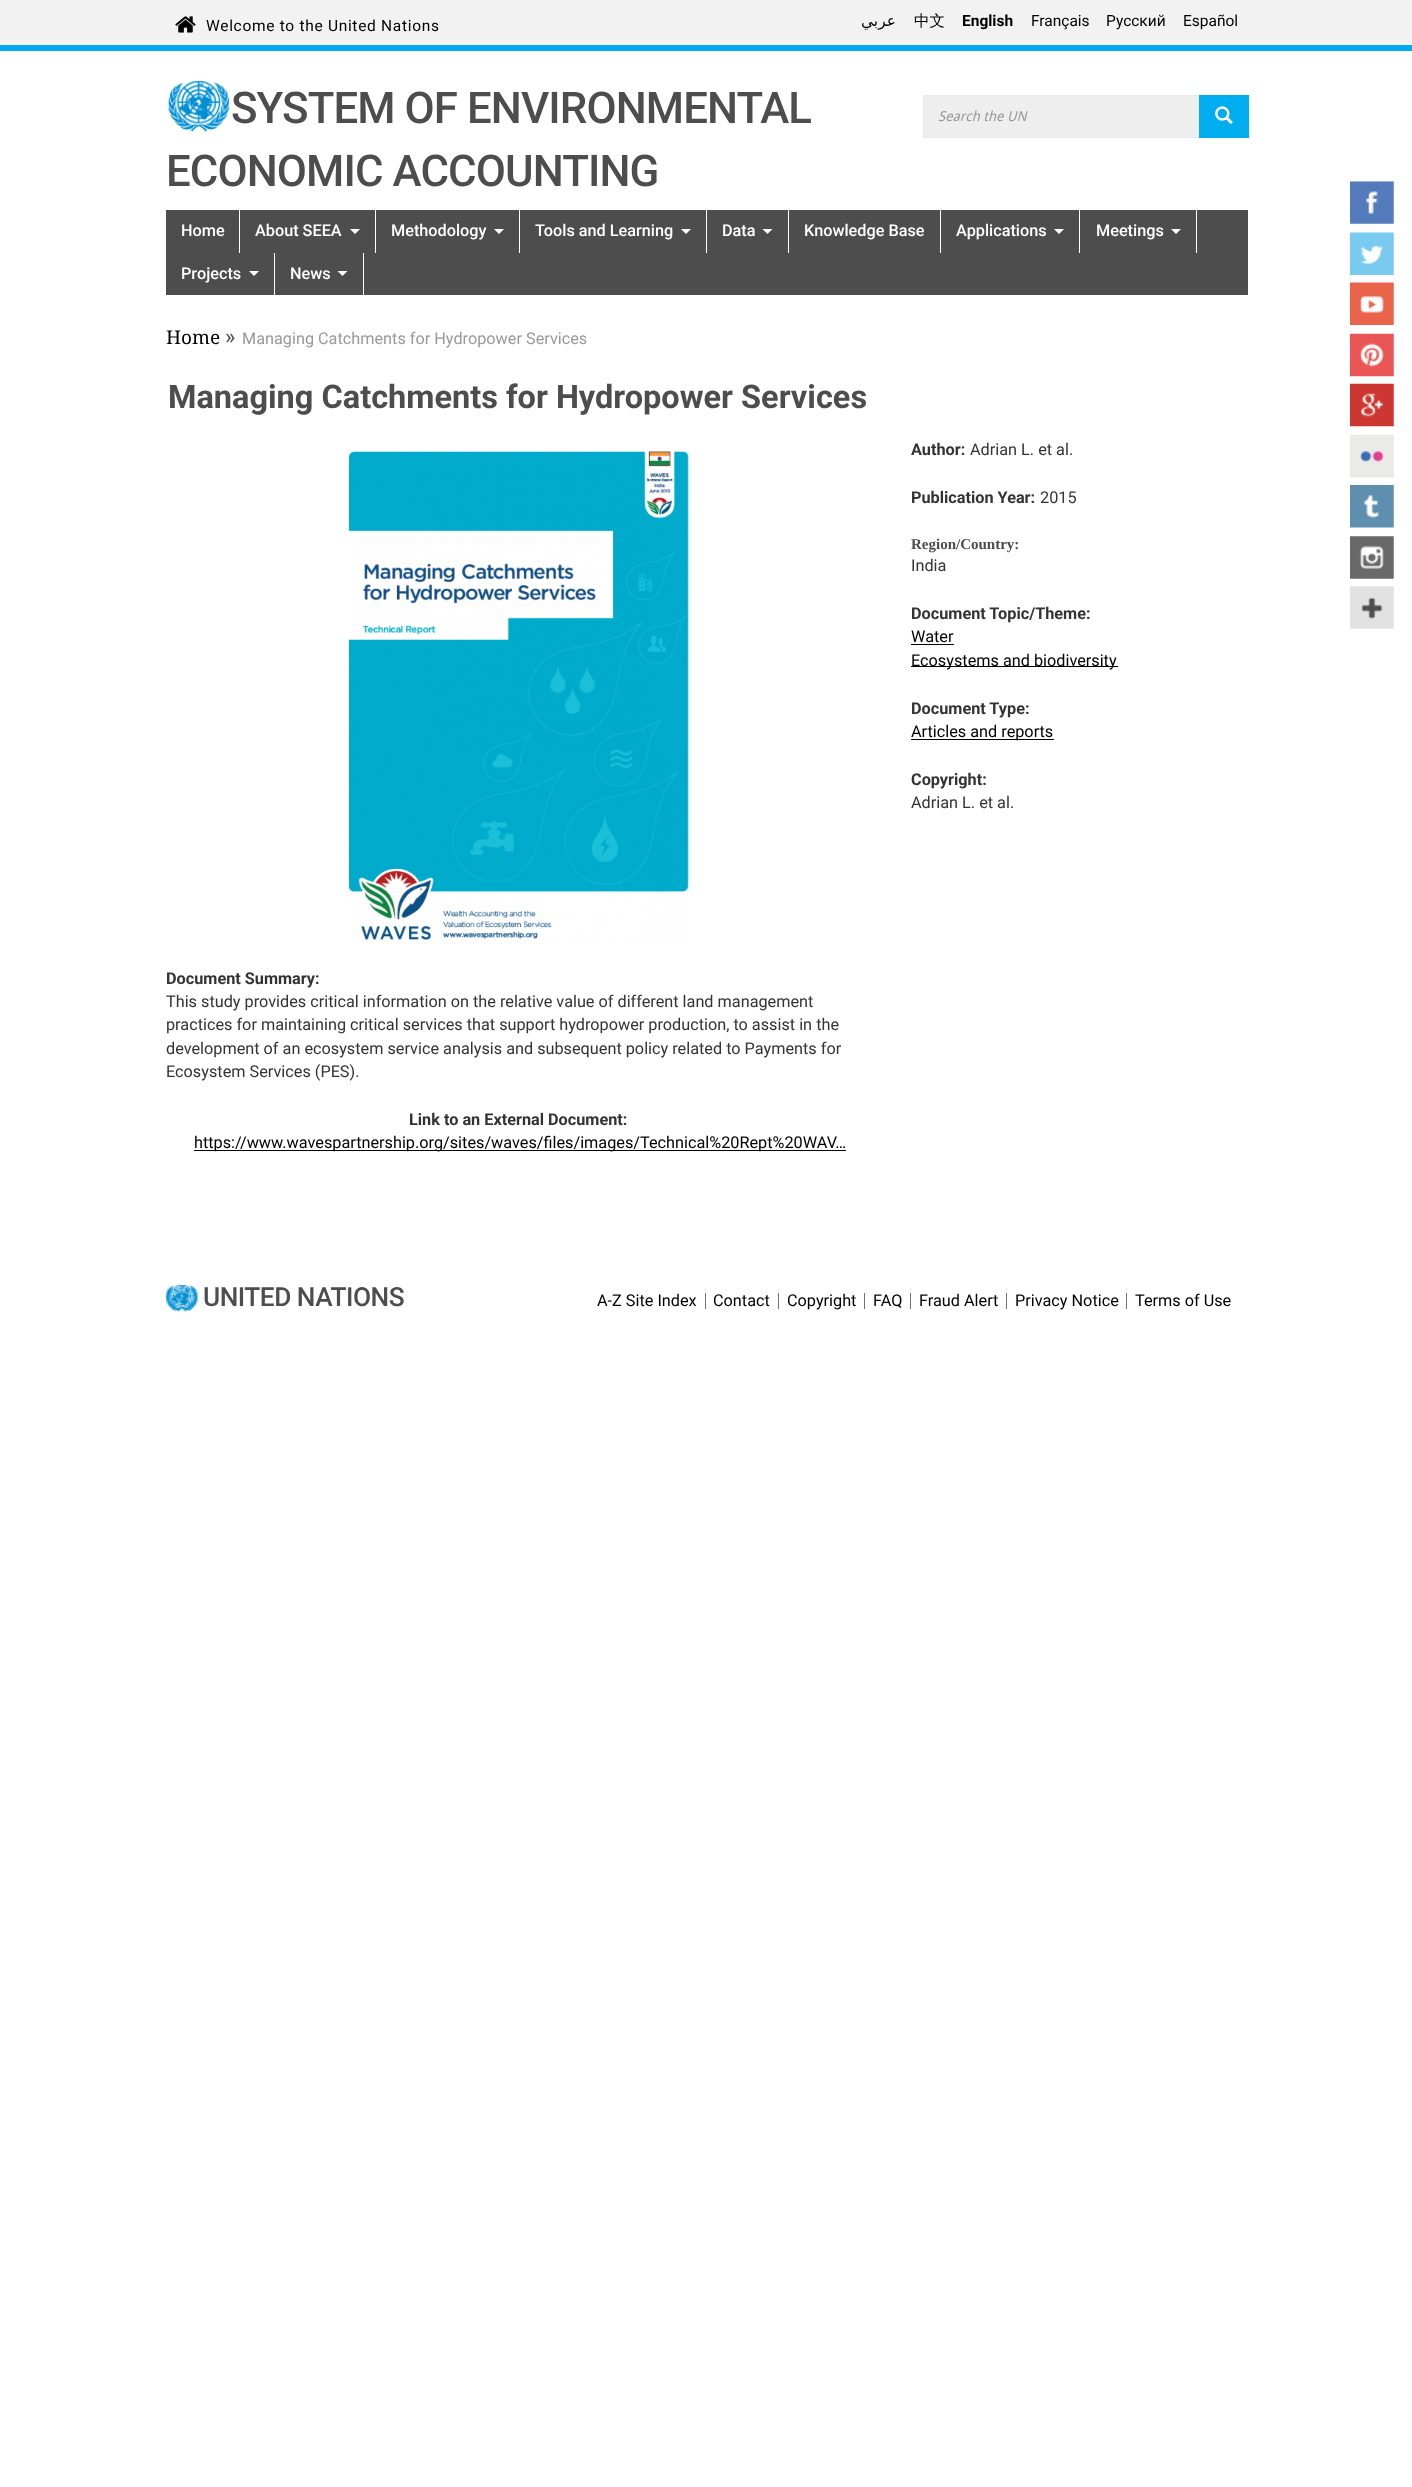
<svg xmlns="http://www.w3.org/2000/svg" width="1412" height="2487">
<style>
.a{font:15.5px Roboto;letter-spacing:0.7px;fill:#000}
.b{font:15.5px DejaVu Sans;direction:rtl;fill:#000}
.c{font:500 15.5px WenQuanYi Zen Hei;fill:#000}
.d{font:bold 15.5px Roboto;fill:#000}
.e{font:15.5px Roboto;fill:#000}
.f{font:500 43.75px Roboto;letter-spacing:-0.9px;fill:#4d4d4d}
.g{font:italic 13.75px Droid Sans;fill:#999}
.h{font:500 16.25px Roboto;fill:#fff}
.i{font:19px Noto Naskh Arabic;fill:#000}
.j{font:22px Roboto;fill:#4d4d4d}
.k{font:16.25px Roboto;fill:#999}
.l{font:bold 32.5px Roboto;fill:#4d4d4d}
.m{font:bold 16.25px Roboto;fill:#333}
.n{font:16.25px Roboto;fill:#333}
.o{font:bold 15px Liberation Serif;fill:#4d4d4d}
.p{font:16.25px Roboto;fill:#000}
.q{font:500 26.25px Roboto;letter-spacing:-0.5px;fill:#4d4d4d}
</style>
<rect width="100%" height="100%" fill="#fff"/>
<path fill="#f2f2f2" d="M0 0h1412v45H0z"/>
<path fill="#00adef" d="M0 45h1412v6H0z"/>
<image href="1.png" x="175" y="16" width="21" height="17"/>
<image href="2.png" x="168" y="81" width="61" height="51"/>
<path fill="#eee" stroke="#eaeaea" d="M923.5 95.5h276v42H923.5z"/>
<path fill="#00adef" d="M1199 95h50v43H1199z"/>
<image href="3.png" x="1215" y="106" width="18" height="18"/>
<path fill="#4d4d4d" d="M166 210h1082v85H166z"/>
<path fill="#fff" d="M239 210h1v43H239z"/>
<path fill="#fff" d="M375 210h1v43H375z"/>
<path fill="#fff" d="M350 229h10l-5 5z"/>
<path fill="#fff" d="M519 210h1v43H519z"/>
<path fill="#fff" d="M494 229h10l-5 5z"/>
<path fill="#fff" d="M706 210h1v43H706z"/>
<path fill="#fff" d="M681 229h10l-5 5z"/>
<path fill="#fff" d="M788 210h1v43H788z"/>
<path fill="#fff" d="M762.5 229h10l-5 5z"/>
<path fill="#fff" d="M940 210h1v43H940z"/>
<path fill="#fff" d="M1079 210h1v43H1079z"/>
<path fill="#fff" d="M1054 229h10l-5 5z"/>
<path fill="#fff" d="M1196 210h1v43H1196z"/>
<path fill="#fff" d="M1171 229h10l-5 5z"/>
<path fill="#fff" d="M274 253h1v42H274z"/>
<path fill="#fff" d="M249 271h10l-5 5z"/>
<path fill="#fff" d="M363 253h1v42H363z"/>
<path fill="#fff" d="M337.5 271h10l-5 5z"/>
<image href="4.png" x="1350" y="181" width="44" height="43"/>
<image href="5.png" x="1350" y="232" width="44" height="43"/>
<image href="6.png" x="1350" y="282" width="44" height="43"/>
<image href="7.png" x="1350" y="333" width="44" height="44"/>
<image href="8.png" x="1350" y="383" width="44" height="44"/>
<image href="9.png" x="1350" y="435" width="44" height="43"/>
<image href="10.png" x="1350" y="485" width="44" height="43"/>
<image href="11.png" x="1350" y="536" width="44" height="43"/>
<image href="12.png" x="1350" y="586" width="44" height="43"/>
<path fill="#000" d="M911 644h43v1H911z"/>
<path fill="#000" d="M911 666h207v1H911z"/>
<path fill="#000" d="M911 739h143v1H911z"/>
<image href="13.png" x="348" y="450" width="341" height="490"/>
<path fill="#000" d="M194 1150h652v1H194z"/>
<image href="14.png" x="166" y="1285" width="32" height="27"/>
<path fill="#737373" d="M705 1293h1v16H705z"/>
<path fill="#737373" d="M778 1293h1v16H778z"/>
<path fill="#737373" d="M864 1293h1v16H864z"/>
<path fill="#737373" d="M910 1293h1v16H910z"/>
<path fill="#737373" d="M1006 1293h1v16H1006z"/>
<path fill="#737373" d="M1126 1293h1v16H1126z"/>
<text class="a" x="206" y="31">Welcome to the United Nations</text>
<text class="b" x="896" y="26">عربي</text>
<text class="c" x="914" y="26">中文</text>
<text class="d" x="962" y="26">English</text>
<text class="e" x="1031" y="26">Français</text>
<text class="e" x="1106" y="26">Русский</text>
<text class="e" x="1183" y="26">Español</text>
<text class="f" x="231" y="123">SYSTEM OF ENVIRONMENTAL</text>
<text class="f" x="166" y="186">ECONOMIC ACCOUNTING</text>
<text class="g" x="938" y="121">Search the UN</text>
<text class="h" x="181" y="236">Home</text>
<text class="h" x="255" y="236">About SEEA</text>
<text class="h" x="391" y="236">Methodology</text>
<text class="h" x="535" y="236">Tools and Learning</text>
<text class="h" x="722" y="236">Data</text>
<text class="h" x="804" y="236">Knowledge Base</text>
<text class="h" x="956" y="236">Applications</text>
<text class="h" x="1096" y="236">Meetings</text>
<text class="h" x="181" y="279">Projects</text>
<text class="h" x="290" y="279">News</text>
<text class="i" x="166" y="344">Home</text>
<text class="j" x="225" y="344">»</text>
<text class="k" x="242" y="344">Managing Catchments for Hydropower Services</text>
<text class="l" x="168" y="408">Managing Catchments for Hydropower Services</text>
<text class="m" x="911" y="455">Author:</text>
<text class="n" x="970" y="455">Adrian L. et al.</text>
<text class="m" x="911" y="503">Publication Year:</text>
<text class="n" x="1040" y="503">2015</text>
<text class="o" x="911" y="549">Region/Country:</text>
<text class="n" x="911" y="571">India</text>
<text class="m" x="911" y="619">Document Topic/Theme:</text>
<text class="p" x="911" y="642">Water</text>
<text class="p" x="911" y="666">Ecosystems and biodiversity</text>
<text class="m" x="911" y="714">Document Type:</text>
<text class="p" x="911" y="737">Articles and reports</text>
<text class="m" x="911" y="785">Copyright:</text>
<text class="n" x="911" y="808">Adrian L. et al.</text>
<text class="m" x="166" y="984">Document Summary:</text>
<text class="n" x="166" y="1007">This study provides critical information on the relative value of different land management</text>
<text class="n" x="166" y="1030">practices for maintaining critical services that support hydropower production, to assist in the</text>
<text class="n" x="166" y="1054">development of an ecosystem service analysis and subsequent policy related to Payments for</text>
<text class="n" x="166" y="1077">Ecosystem Services (PES).</text>
<text class="m" x="409" y="1125">Link to an External Document:</text>
<text class="p" x="194" y="1148">https://www.wavespartnership.org/sites/waves/files/images/Technical%20Rept%20WAV…</text>
<text class="q" x="203" y="1306">UNITED NATIONS</text>
<text class="p" x="597" y="1306">A-Z Site Index</text>
<text class="p" x="713" y="1306">Contact</text>
<text class="p" x="787" y="1306">Copyright</text>
<text class="p" x="873" y="1306">FAQ</text>
<text class="p" x="919" y="1306">Fraud Alert</text>
<text class="p" x="1015" y="1306">Privacy Notice</text>
<text class="p" x="1135" y="1306">Terms of Use</text>
</svg>
